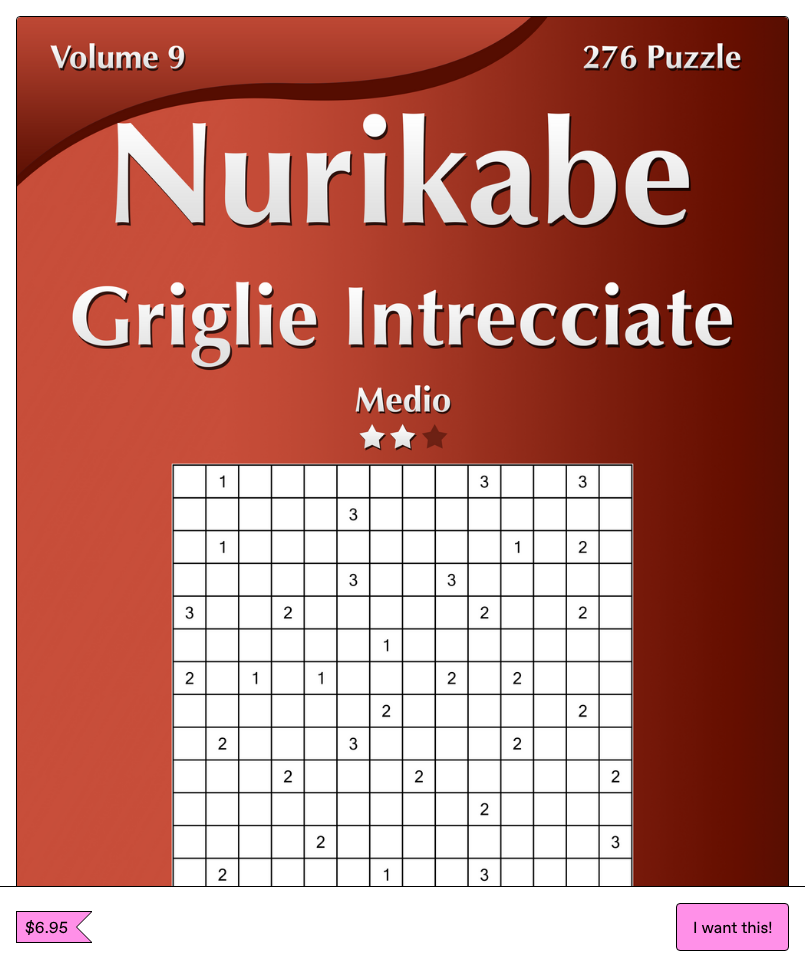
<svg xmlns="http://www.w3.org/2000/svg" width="805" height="967">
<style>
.a{font:16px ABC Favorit;fill:#000}
</style>
<rect width="100%" height="100%" fill="#fff"/>
<rect fill="none" stroke="#000" x="16.5" y="16.5" width="772" height="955" rx="3.5"/>
<image href="1.png" x="17" y="17" width="771" height="869"/>
<path fill="#000" d="M0 886h805v1H0z"/>
<path fill="#fff" d="M16 887h773v80H16z"/>
<path fill="#000" d="M16 911h76v1H16z"/>
<path fill="#000" d="M16 942h76v1H16z"/>
<path fill="#000" d="M16 911h1v32H16z"/>
<path fill="#ff90e8" d="M17 912h59v30H17z"/>
<path fill="#000" d="M76 912h16l-15 15zm16 30h-16l1-15z"/>
<path fill="#000" d="M76 926h1v2H76z"/>
<path fill="#ff90e8" d="M75 912h16l-15 15zm16 30h-16l1-15z"/>
<rect fill="#ff90e8" stroke="#000" x="676.5" y="903.5" width="112" height="47" rx="3.5"/>
<text class="a" x="25" y="933">$6.95</text>
<text class="a" x="693" y="933">I want this!</text>
</svg>
